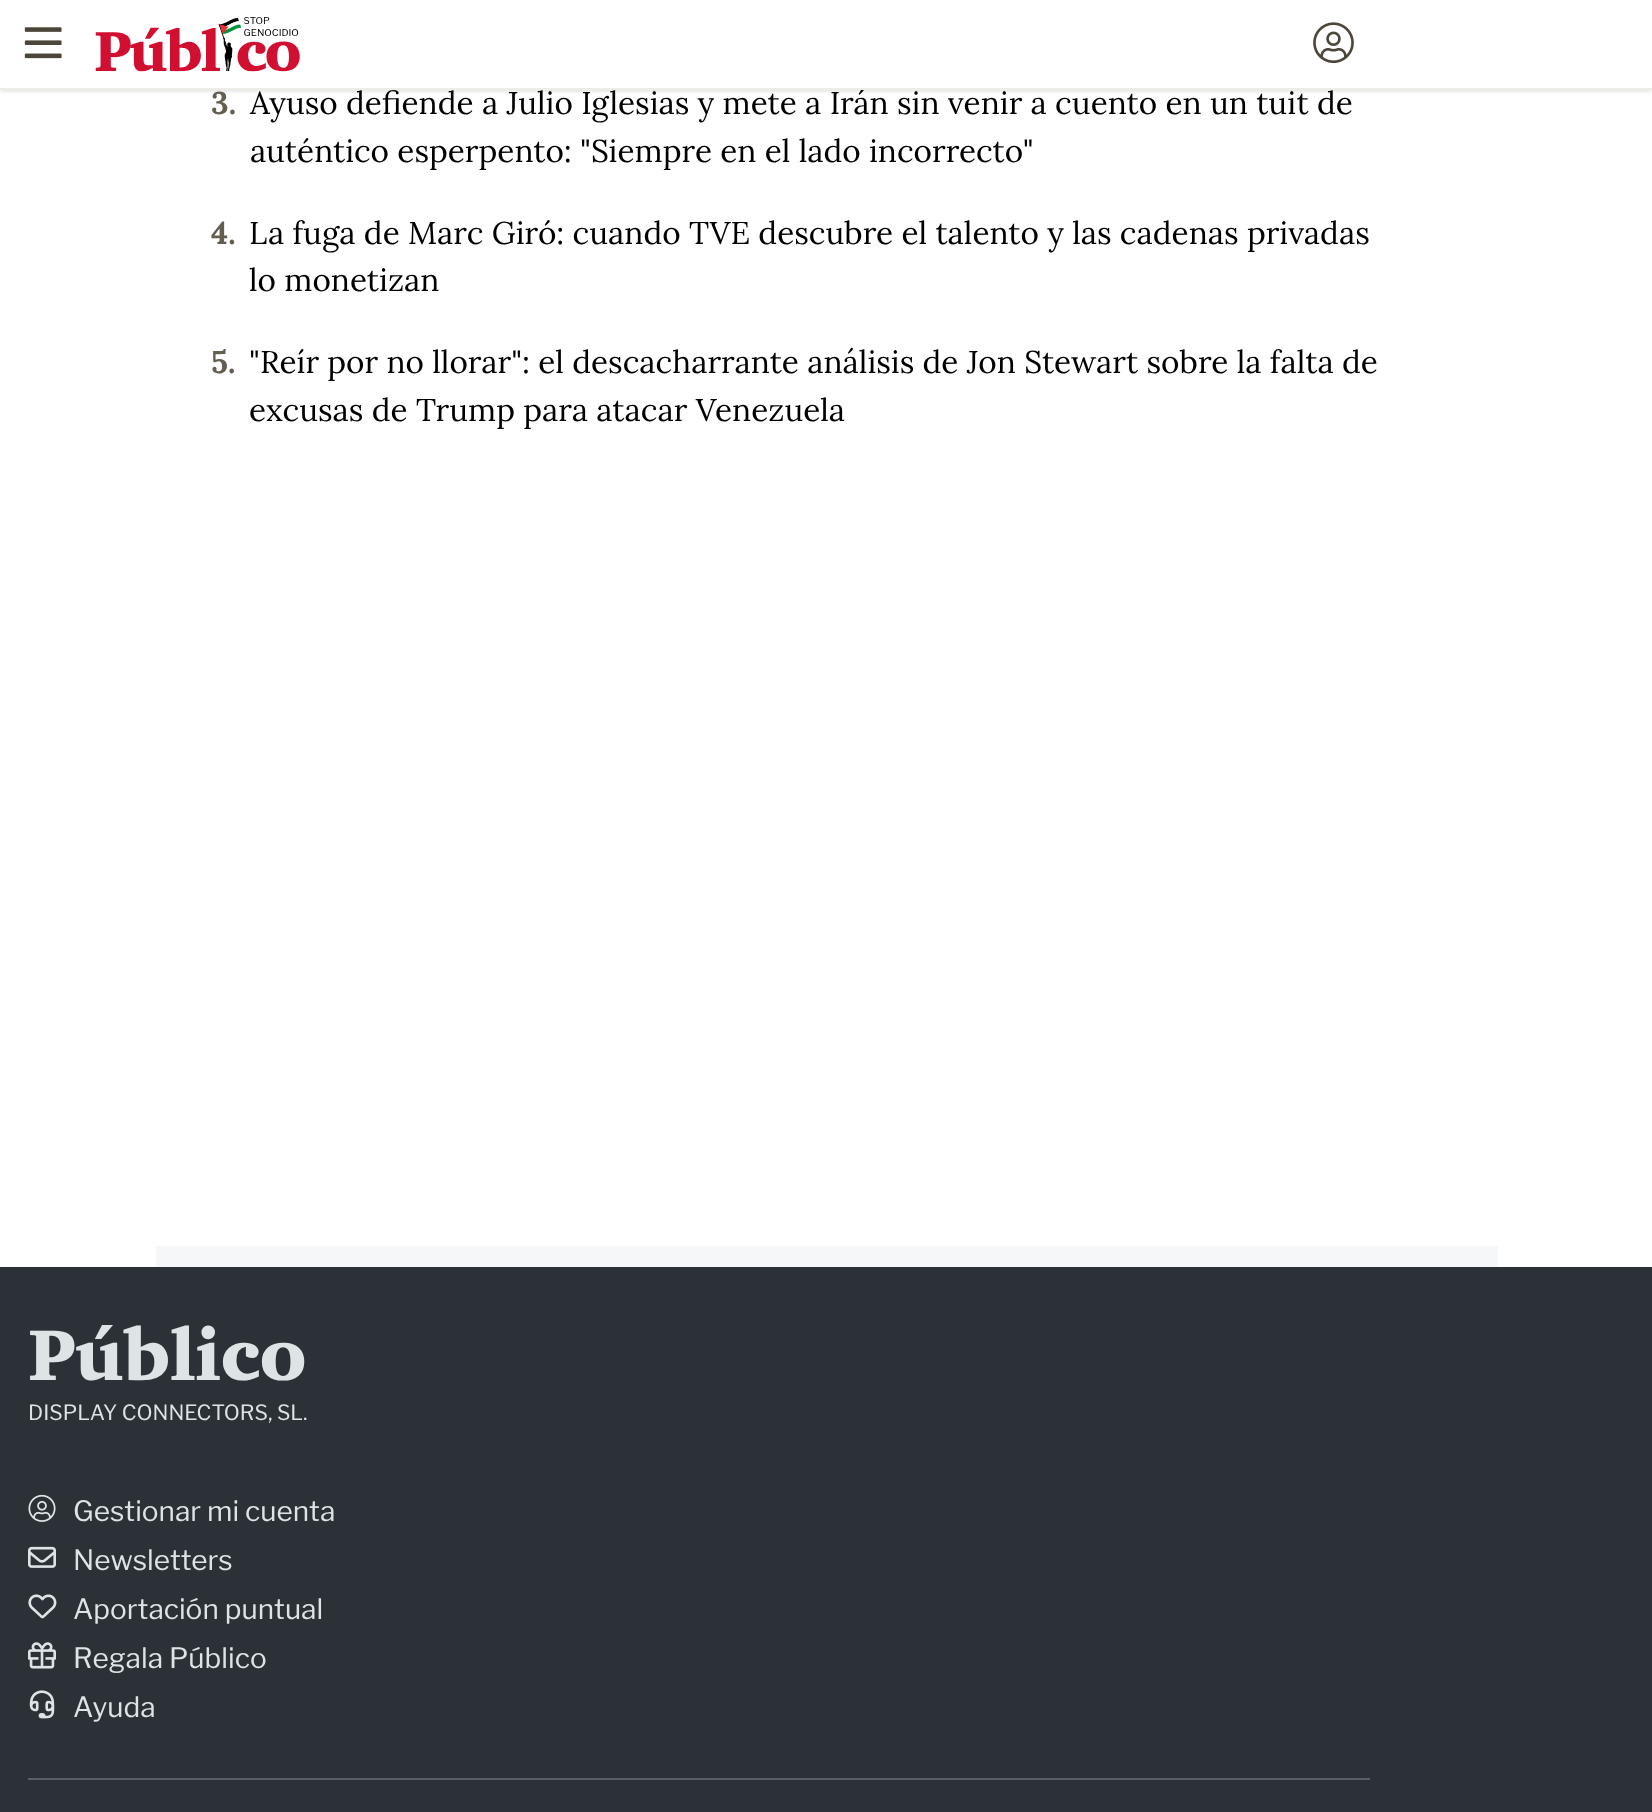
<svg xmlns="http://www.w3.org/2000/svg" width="1652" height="1812">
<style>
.a{font:bold 31.5px Lora;fill:#645e51}
.b{font:31.5px Lora;fill:#000}
.c{font:900 73.5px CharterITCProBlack;letter-spacing:-0.75px;fill:#dee3e6}
.d{font:21px Libre Franklin;fill:#dee3e6}
.e{font:28px Libre Franklin;fill:#dee3e6}
</style>
<rect width="100%" height="100%" fill="#fff"/>
<path fill="#0000001a" filter="blur(2px)" d="M2 4h1648v85H2z"/>
<path fill="#0000001a" filter="blur(2.5px)" d="M0 2h1652v89H0z"/>
<path fill="#fff" d="M0 0h1652v88H0z"/>
<image href="1.png" x="24" y="27" width="38" height="32"/>
<image href="2.png" x="95" y="17" width="205" height="55"/>
<image href="3.png" x="1313" y="22" width="41" height="42"/>
<path fill="#f5f7f8" d="M156 1246h1342v21H156z"/>
<path fill="#2b3137" d="M0 1267h1652v545H0z"/>
<image href="4.png" x="28" y="1494" width="28" height="28"/>
<image href="5.png" x="28" y="1546" width="28" height="22"/>
<image href="6.png" x="28" y="1594" width="29" height="25"/>
<image href="7.png" x="28" y="1642" width="28" height="27"/>
<image href="8.png" x="29" y="1690" width="26" height="29"/>
<path fill="#556068" d="M28 1778h1342v2H28z"/>
<text class="a" x="211" y="114">3.</text>
<text class="b" x="250" y="114">Ayuso defiende a Julio Iglesias y mete a Irán sin venir a cuento en un tuit de</text>
<path fill="#eeece7" d="M0 88h1652v2H0z"/>
<text class="b" x="250" y="162">auténtico esperpento: "Siempre en el lado incorrecto"</text>
<text class="a" x="211" y="244">4.</text>
<text class="b" x="249" y="244">La fuga de Marc Giró: cuando TVE descubre el talento y las cadenas privadas</text>
<text class="b" x="249" y="291">lo monetizan</text>
<text class="a" x="211" y="373">5.</text>
<text class="b" x="249" y="373">"Reír por no llorar": el descacharrante análisis de Jon Stewart sobre la falta de</text>
<text class="b" x="249" y="421">excusas de Trump para atacar Venezuela</text>
<text class="c" x="28" y="1380">Público</text>
<text class="d" x="28" y="1420">DISPLAY CONNECTORS, SL.</text>
<text class="e" x="73" y="1521">Gestionar mi cuenta</text>
<text class="e" x="73" y="1570">Newsletters</text>
<text class="e" x="73" y="1619">Aportación puntual</text>
<text class="e" x="73" y="1668">Regala Público</text>
<text class="e" x="73" y="1717">Ayuda</text>
</svg>
